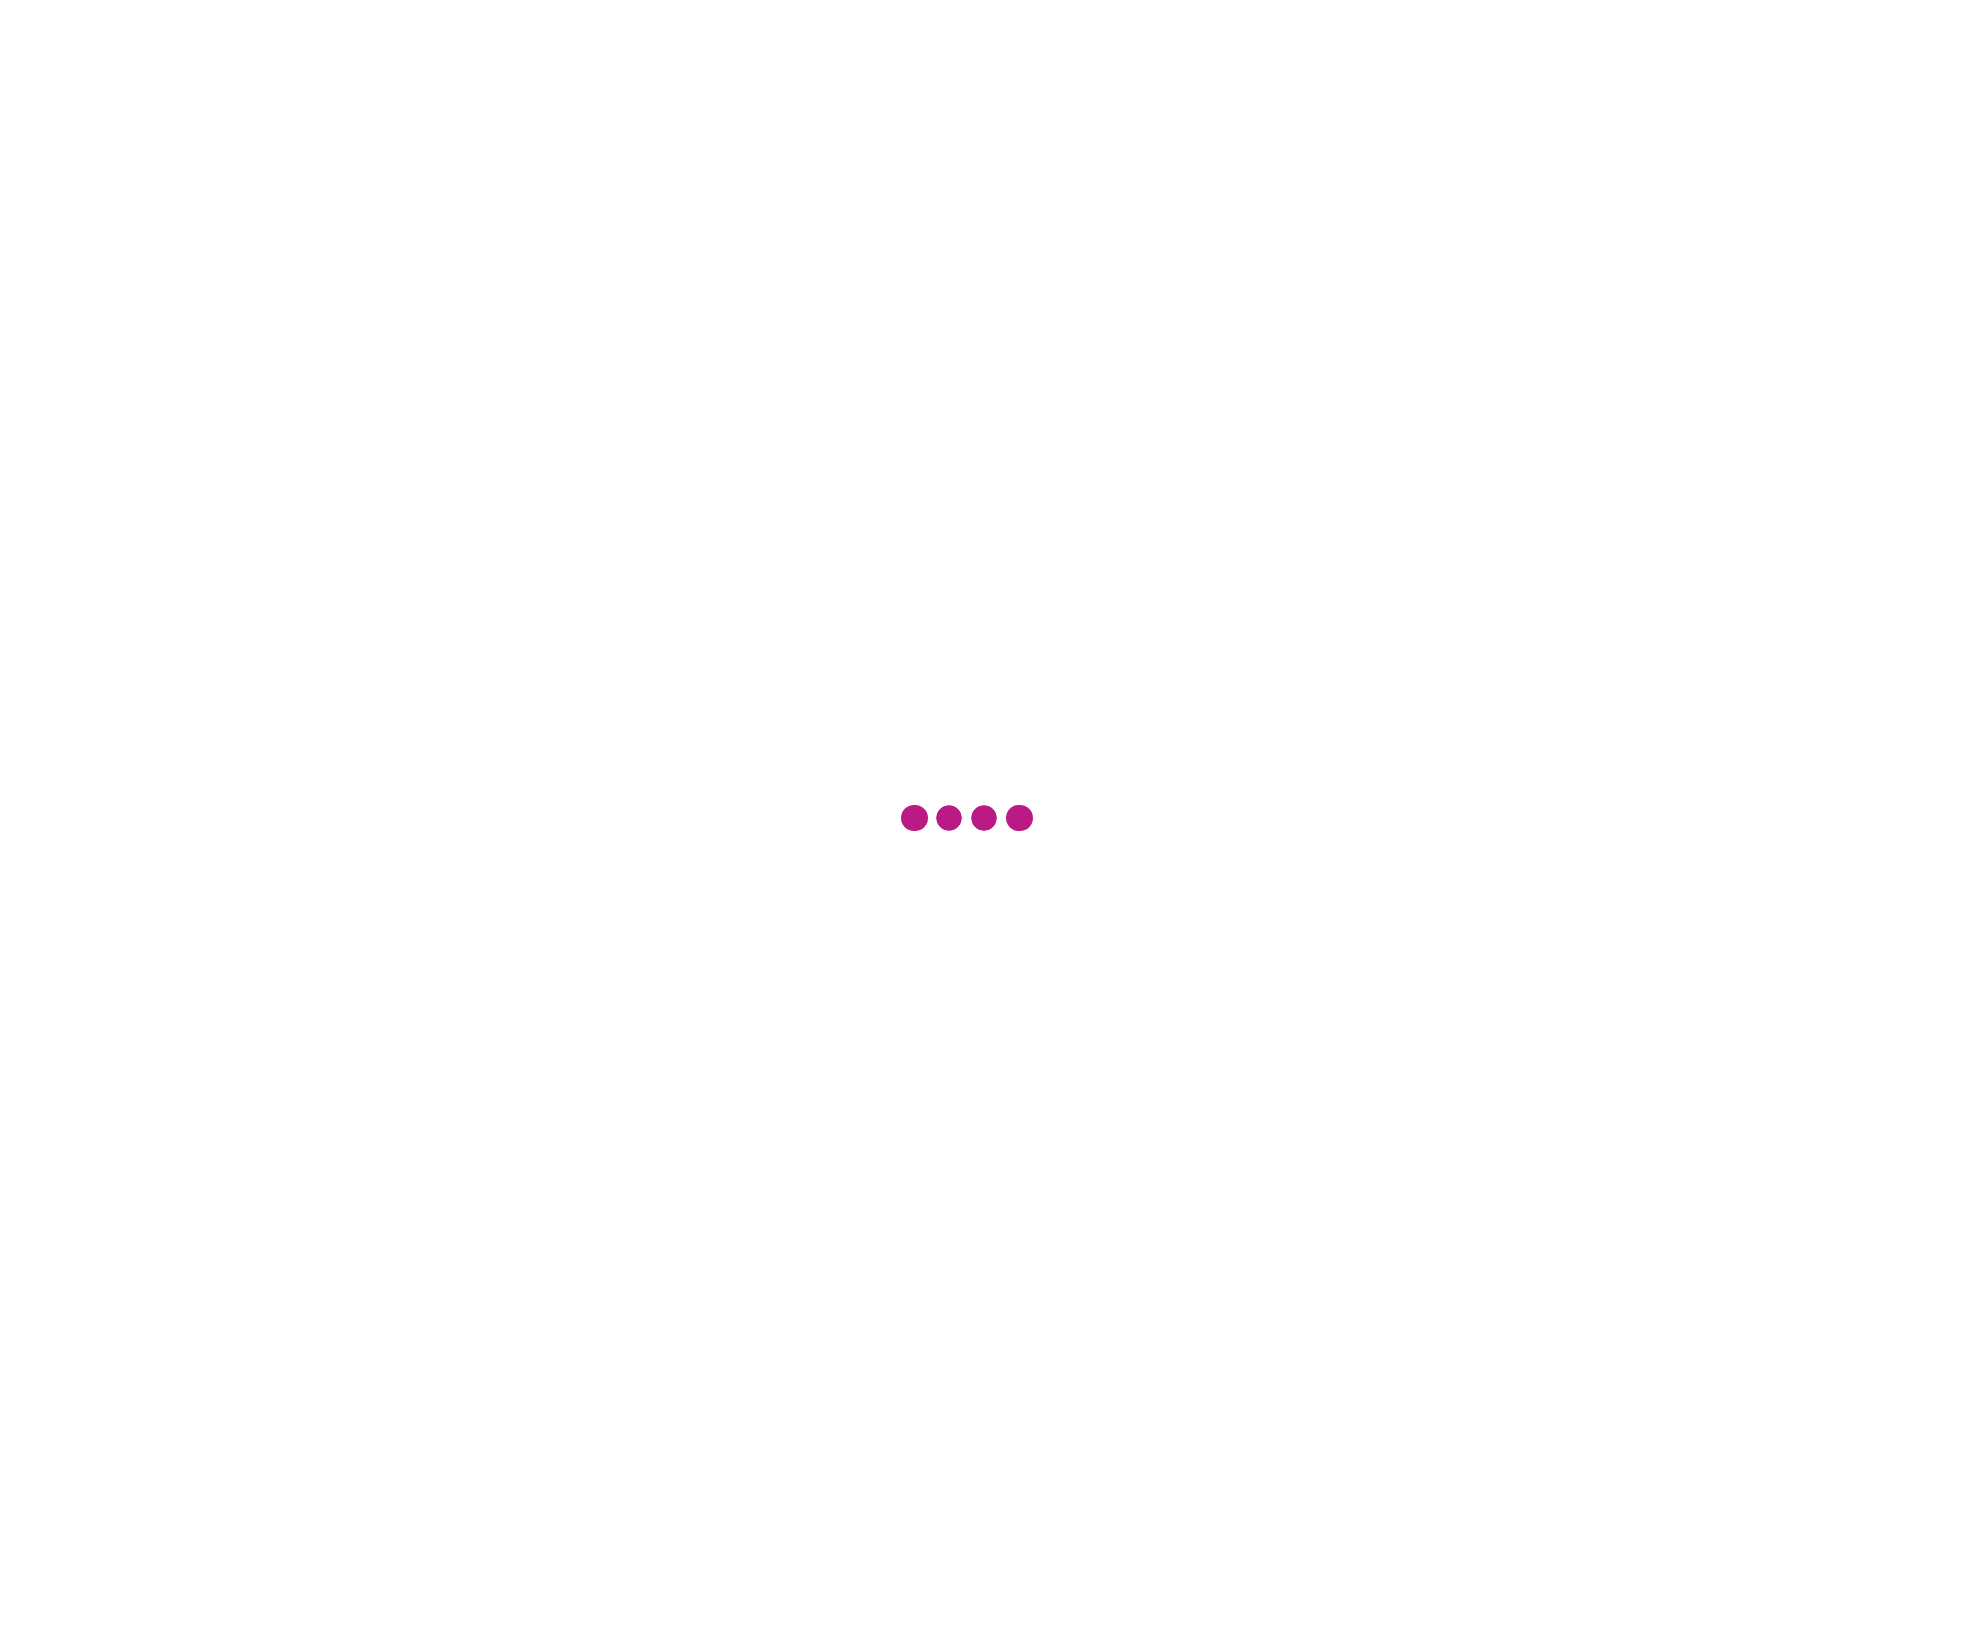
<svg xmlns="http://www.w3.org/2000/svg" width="1977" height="1633">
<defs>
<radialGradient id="g1" gradientUnits="userSpaceOnUse" cx="984" cy="818" r="13"><stop offset="0.95" stop-color="#ba1a84"/><stop offset="1" stop-color="#fff"/></radialGradient>
<radialGradient id="g2" gradientUnits="userSpaceOnUse" cx="949" cy="818" r="13"><stop offset="0.95" stop-color="#ba1a84"/><stop offset="1" stop-color="#fff"/></radialGradient>
</defs>
<rect width="100%" height="100%" fill="#fff"/>
<path fill="url(#g1)" d="M971 805h26v26H971z"/>
<path fill="url(#g2)" d="M936 805h26v26H936z"/>
<rect fill="#ba1a84" x="901" y="805" width="27" height="26" rx="13"/>
<rect fill="#ba1a84" x="1006" y="805" width="27" height="26" rx="13"/>
</svg>
